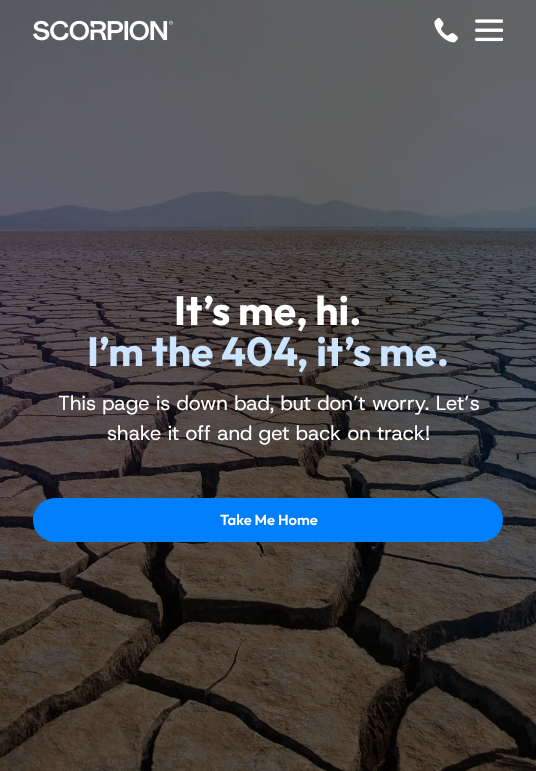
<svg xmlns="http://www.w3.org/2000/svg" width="536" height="771">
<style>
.a{font:bold 40.75px Outfit;fill:#fff}
.b{font:bold 40.75px Outfit;fill:#cce4ff}
.c{font:20.4px Host Grotesk;fill:#fff}
.d{font:600 14.75px Outfit;fill:#fff}
</style>
<defs>
<radialGradient id="g1" gradientUnits="userSpaceOnUse" cx="0" cy="0" r="1" gradientTransform="matrix(241 0 0 370 536 386)"><stop offset="0" stop-color="#001933"/><stop offset="1" stop-color="#000"/></radialGradient>
<radialGradient id="g2" gradientUnits="userSpaceOnUse" cx="0" cy="0" r="1" gradientTransform="matrix(359 0 0 347 0 308)"><stop offset="0" stop-color="#6d5aff" stop-opacity="0.2"/><stop offset="1" stop-color="#6d5aff" stop-opacity="0"/></radialGradient>
</defs>
<rect width="100%" height="100%" fill="#fff"/>
<path fill="url(#g1)" d="M0 0h536v771H0z"/>
<path fill="url(#g2)" d="M0 0h320v617H0z"/>
<image href="4.png" x="0" y="0" width="536" height="771"/>
<image href="1.png" x="33" y="20" width="140" height="21"/>
<image href="2.png" x="434" y="18" width="24" height="25"/>
<image href="3.png" x="475" y="19" width="28" height="23"/>
<rect fill="#007ffd" x="33" y="498" width="470" height="44" rx="22"/>
<text class="a" x="174" y="325">It’s me, hi.</text>
<text class="b" x="87" y="366">I’m the 404, it’s me.</text>
<text class="c" x="58" y="410">This page is down bad, but don’t worry. Let’s</text>
<text class="c" x="107" y="440">shake it off and get back on track!</text>
<text class="d" x="220" y="525">Take Me Home</text>
</svg>
